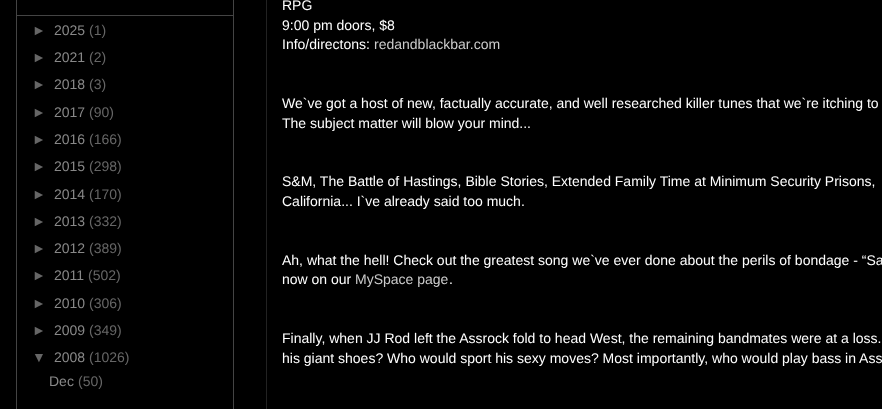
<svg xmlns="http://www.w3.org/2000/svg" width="882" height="409">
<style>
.a{font:14px Liberation Sans;fill:#666}
.b{font:14px Liberation Sans;fill:#888}
.c{font:14px Liberation Sans;fill:#fff}
.d{font:14px Liberation Sans;fill:#ccc}
</style>
<rect width="100%" height="100%" fill="#000"/>
<path fill="none" stroke="#444" d="M16.5 -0.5h217v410H16.5z"/>
<path fill="#444" d="M17 15h216v1H17z"/>
<path fill="none" stroke="#222" d="M266.5 -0.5h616v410H266.5z"/>
<text class="a" x="32" y="35">►</text>
<text class="b" x="54" y="35">2025</text>
<text class="a" x="89" y="35">(1)</text>
<text class="a" x="32" y="62">►</text>
<text class="b" x="54" y="62">2021</text>
<text class="a" x="89" y="62">(2)</text>
<text class="a" x="32" y="89">►</text>
<text class="b" x="54" y="89">2018</text>
<text class="a" x="89" y="89">(3)</text>
<text class="a" x="32" y="117">►</text>
<text class="b" x="54" y="117">2017</text>
<text class="a" x="89" y="117">(90)</text>
<text class="a" x="32" y="144">►</text>
<text class="b" x="54" y="144">2016</text>
<text class="a" x="89" y="144">(166)</text>
<text class="a" x="32" y="171">►</text>
<text class="b" x="54" y="171">2015</text>
<text class="a" x="89" y="171">(298)</text>
<text class="a" x="32" y="199">►</text>
<text class="b" x="54" y="199">2014</text>
<text class="a" x="89" y="199">(170)</text>
<text class="a" x="32" y="226">►</text>
<text class="b" x="54" y="226">2013</text>
<text class="a" x="89" y="226">(332)</text>
<text class="a" x="32" y="253">►</text>
<text class="b" x="54" y="253">2012</text>
<text class="a" x="89" y="253">(389)</text>
<text class="a" x="32" y="280">►</text>
<text class="b" x="54" y="280">2011</text>
<text class="a" x="88" y="280">(502)</text>
<text class="a" x="32" y="308">►</text>
<text class="b" x="54" y="308">2010</text>
<text class="a" x="89" y="308">(306)</text>
<text class="a" x="32" y="335">►</text>
<text class="b" x="54" y="335">2009</text>
<text class="a" x="89" y="335">(349)</text>
<text class="a" x="32" y="362">▼</text>
<text class="b" x="54" y="362">2008</text>
<text class="a" x="89" y="362">(1026)</text>
<text class="b" x="49" y="386">Dec</text>
<text class="a" x="78" y="386">(50)</text>
<text class="c" x="282" y="10">RPG</text>
<text class="c" x="282" y="30">9:00 pm doors, $8</text>
<text class="c" x="282" y="49">Info/directons:</text>
<text class="d" x="374" y="49">redandblackbar.com</text>
<text class="c" x="282" y="108">We`ve got a host of new, factually accurate, and well researched killer tunes that we`re itching to</text>
<text class="c" x="282" y="128">The subject matter will blow your mind...</text>
<text class="c" x="282" y="186">S&amp;M, The Battle of Hastings, Bible Stories, Extended Family Time at Minimum Security Prisons,</text>
<text class="c" x="282" y="206">California... I`ve already said too much.</text>
<text class="c" x="282" y="265">Ah, what the hell! Check out the greatest song we`ve ever done about the perils of bondage - “Sa</text>
<text class="c" x="282" y="284">now on our</text>
<text class="d" x="355" y="284">MySpace page</text>
<text class="c" x="449" y="284">.</text>
<text class="c" x="282" y="343">Finally, when JJ Rod left the Assrock fold to head West, the remaining bandmates were at a loss.</text>
<text class="c" x="282" y="363">his giant shoes? Who would sport his sexy moves? Most importantly, who would play bass in Ass</text>
</svg>
